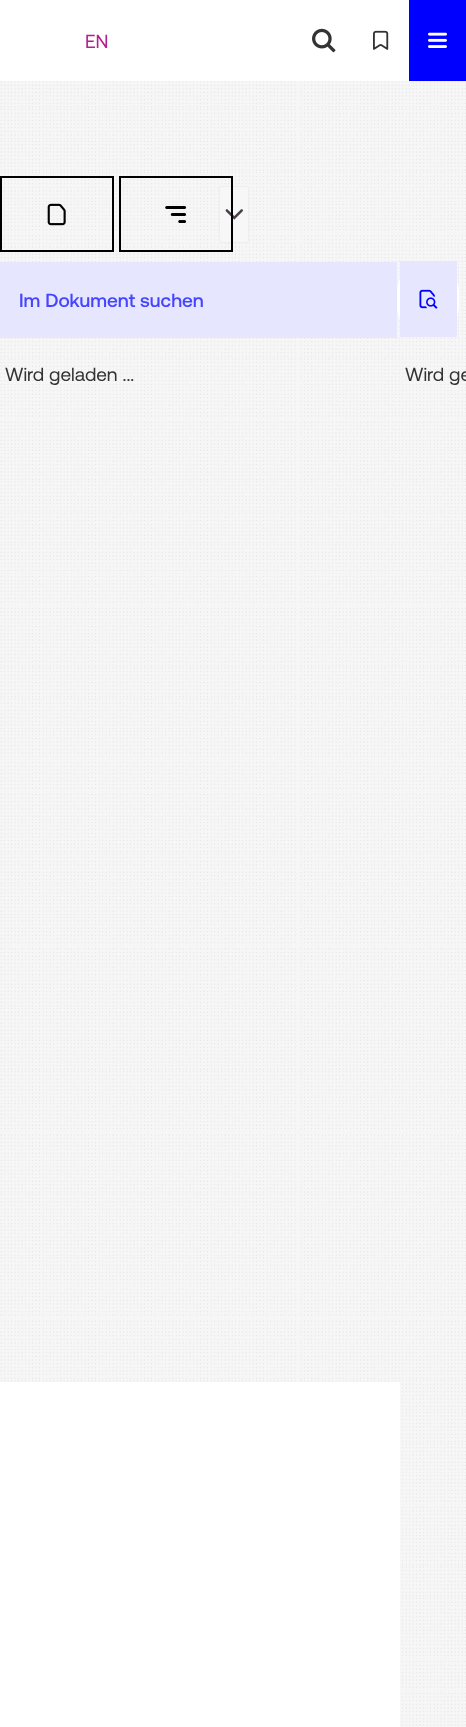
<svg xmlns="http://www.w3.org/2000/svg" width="466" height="1727">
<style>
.a{font:19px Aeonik;fill:#b41e91}
.b{font:500 19px Aeonik;fill:#4545ff}
.c{font:19px Aeonik;fill:#333}
</style>
<rect width="100%" height="100%" fill="#f6f6f6"/>
<image href="1.png" x="0" y="81" width="466" height="1645"/>
<path fill="#fff" d="M0 0h409v81H0z"/>
<image href="2.png" x="312" y="28" width="24" height="25"/>
<image href="3.png" x="373" y="30" width="16" height="20"/>
<path fill="#00f" d="M409 0h57v81H409z"/>
<image href="4.png" x="428" y="32" width="19" height="16"/>
<path fill="none" stroke="#000" stroke-width="2" d="M1 177h112v74H1z"/>
<image href="5.png" x="47" y="203" width="19" height="23"/>
<rect fill="#f7f7f8" stroke="#eee" x="219.5" y="186.5" width="29" height="56" rx="1.5"/>
<image href="7.png" x="225" y="209" width="18" height="11"/>
<path fill="none" stroke="#000" stroke-width="2" d="M120 177h112v74H120z"/>
<image href="6.png" x="165" y="206" width="22" height="17"/>
<path fill="#e6e6ff" d="M0 262h397v76H0z"/>
<rect fill="#fff" x="397" y="261" width="62" height="76" rx="31"/>
<path fill="#e6e6ff" d="M400 261h57v76H400z"/>
<image href="8.png" x="419" y="289" width="19" height="20"/>
<path fill="#fff" d="M0 1382h400v345H0z"/>
<text class="a" x="85" y="48">EN</text>
<text class="b" x="19" y="307">Im Dokument suchen</text>
<text class="c" x="5" y="381">Wird geladen ...</text>
<text class="c" x="405" y="381">Wird ge</text>
</svg>
